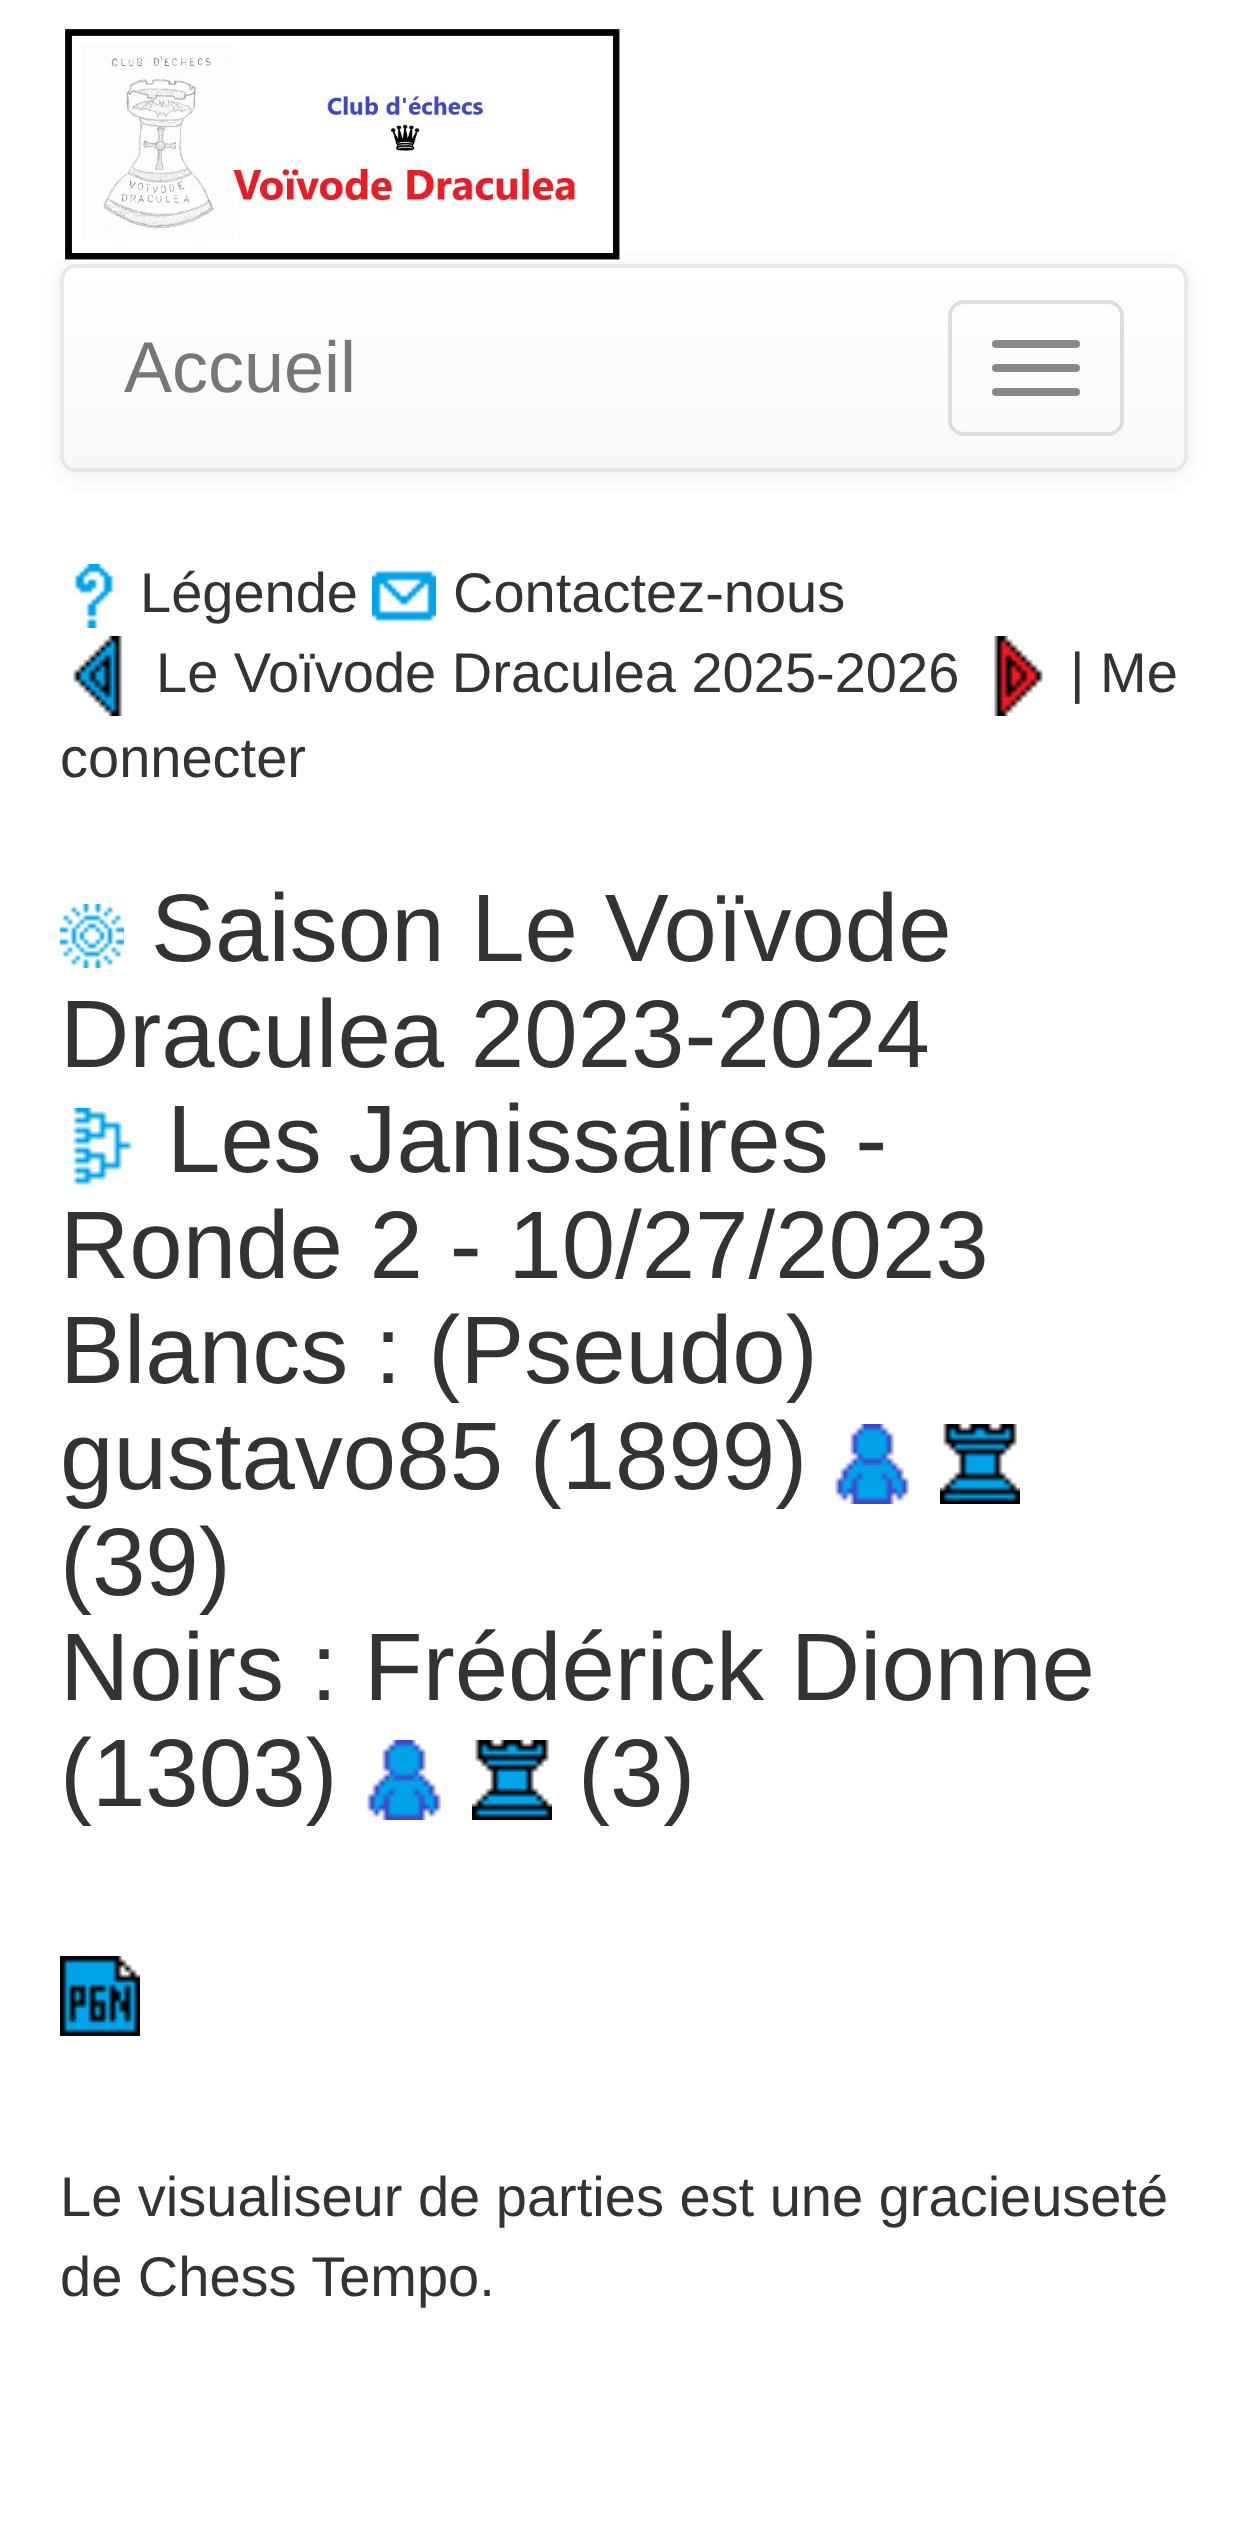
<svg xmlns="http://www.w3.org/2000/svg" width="1247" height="2521">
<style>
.a{font:72px Liberation Sans;fill:#777}
.b{font:56px Liberation Sans;fill:#333}
.c{font:96px Liberation Sans;fill:#333}
</style>
<defs>
<clipPath id="clip1"><rect x="60" y="264" width="1128" height="208" rx="16"/></clipPath>
<linearGradient id="g1" gradientUnits="userSpaceOnUse" x1="624" y1="268" x2="624" y2="468"><stop offset="0" stop-color="#fff"/><stop offset="1" stop-color="#f8f8f8"/></linearGradient>
</defs>
<rect width="100%" height="100%" fill="#fff"/>
<image href="1.png" x="65" y="29" width="555" height="231"/>
<rect fill="#00000012" filter="blur(10px)" x="60" y="268" width="1128" height="208" rx="16"/>
<g clip-path="url(#clip1)">
<path fill="url(#g1)" d="M60 268h1128v200H60z"/>
</g>
<rect fill="none" stroke="#e7e7e7" stroke-width="4" x="62" y="266" width="1124" height="204" rx="14"/>
<rect fill="none" stroke="#ddd" stroke-width="4" x="950" y="302" width="172" height="132" rx="14"/>
<rect fill="#888" x="992" y="340" width="88" height="8" rx="4"/>
<rect fill="#888" x="992" y="364" width="88" height="8" rx="4"/>
<rect fill="#888" x="992" y="388" width="88" height="8" rx="4"/>
<image href="2.png" x="74" y="564" width="40" height="64"/>
<image href="3.png" x="372" y="570" width="64" height="52"/>
<image href="4.png" x="73" y="636" width="49" height="80"/>
<image href="5.png" x="994" y="636" width="49" height="80"/>
<image href="6.png" x="60" y="904" width="64" height="64"/>
<image href="7.png" x="73" y="1108" width="59" height="77"/>
<image href="8.png" x="835" y="1424" width="74" height="80"/>
<image href="9.png" x="940" y="1424" width="80" height="80"/>
<image href="10.png" x="367" y="1740" width="74" height="80"/>
<image href="11.png" x="472" y="1740" width="80" height="80"/>
<image href="12.png" x="60" y="1956" width="80" height="80"/>
<text class="a" x="124" y="392">Accueil</text>
<text class="b" x="140" y="612">Légende</text>
<text class="b" x="453" y="612">Contactez-nous</text>
<text class="b" x="156" y="692">Le Voïvode Draculea 2025-2026</text>
<text class="b" x="1070" y="692">| Me</text>
<text class="b" x="60" y="777">connecter</text>
<text class="c" x="151" y="961">Saison Le Voïvode</text>
<text class="c" x="60" y="1067">Draculea 2023-2024</text>
<text class="c" x="167" y="1172">Les Janissaires -</text>
<text class="c" x="60" y="1278">Ronde 2 - 10/27/2023</text>
<text class="c" x="60" y="1383">Blancs : (Pseudo)</text>
<text class="c" x="60" y="1489">gustavo85 (1899)</text>
<text class="c" x="60" y="1595">(39)</text>
<text class="c" x="60" y="1700">Noirs : Frédérick Dionne</text>
<text class="c" x="60" y="1806">(1303)</text>
<text class="c" x="578" y="1806">(3)</text>
<text class="b" x="60" y="2216">Le visualiseur de parties est une gracieuseté</text>
<text class="b" x="60" y="2296">de Chess Tempo.</text>
</svg>
